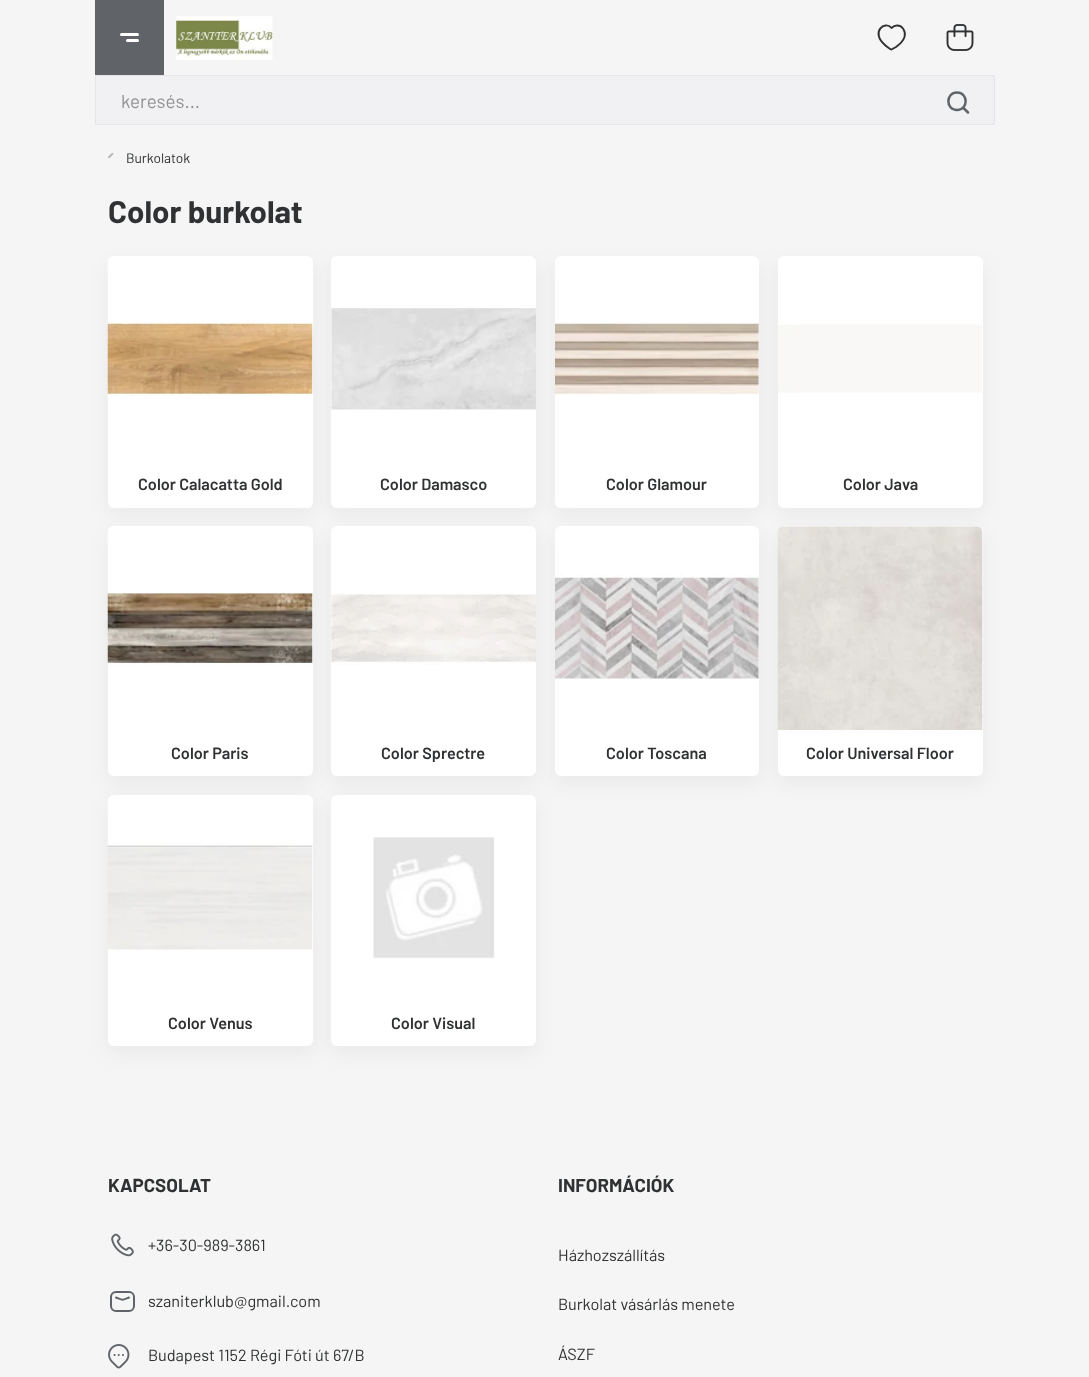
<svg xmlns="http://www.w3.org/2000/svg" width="1089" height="1377">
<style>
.a{font:18.75px Barlow;fill:#909193}
.b{font:13.75px Barlow;fill:#2f3132}
.c{font:bold 31.25px Barlow;fill:#2f3132}
.d{font:600 16.25px Barlow;fill:#2f3132}
.e{font:bold 18.75px Barlow;fill:#2f3132}
.f{font:16.25px Barlow;fill:#2f3132}
</style>
<rect width="100%" height="100%" fill="#f5f5f5"/>
<path fill="#606469" d="M95 0h69v75H95z"/>
<rect fill="#fff" x="120" y="33" width="19" height="3" rx="1.5"/>
<rect fill="#fff" x="126" y="39" width="13" height="3" rx="1.5"/>
<image href="1.png" x="176" y="16" width="97" height="44"/>
<path fill="none" stroke="#2f3132" stroke-width="1.9" stroke-linecap="round" stroke-linejoin="round" d="M897 25.5c6 0 9 6.5 7.5 11.5c-1.5 4.5-5 7.5-8.5 10l-4.5 2.5c-1 0-6-4-6.5-4.5c-15-13 0-25 6.5-17c1-1 3-2.5 5.5-2.5z"/>
<image href="2.png" x="946" y="24" width="28" height="27"/>
<path fill="#f1f1f4" stroke="#e4e4ea" d="M95.5 75.5h899v49H95.5z"/>
<path fill="none" stroke="#606469" stroke-width="2.5" stroke-linecap="round" stroke-linejoin="round" d="M968 112.5l-5-5m-6 2.5c-11.5 0-11.5-17.5 0-17.5c11.5 0 11.5 17.5 0 17.5z"/>
<image href="3.png" x="108" y="153" width="6" height="5"/>
<rect fill="#0000000d" filter="blur(9.5px)" x="108" y="263" width="205" height="251" rx="6"/>
<rect fill="#fff" x="108" y="256" width="205" height="252" rx="6"/>
<rect fill="#0000000d" filter="blur(9.5px)" x="331" y="263" width="205" height="251" rx="6"/>
<image href="4.png" x="107" y="259" width="206" height="137"/>
<rect fill="#fff" x="331" y="256" width="205" height="252" rx="6"/>
<rect fill="#0000000d" filter="blur(9.5px)" x="555" y="263" width="204" height="251" rx="6"/>
<image href="5.png" x="331" y="308" width="205" height="102"/>
<rect fill="#fff" x="555" y="256" width="204" height="252" rx="6"/>
<rect fill="#0000000d" filter="blur(9.5px)" x="778" y="263" width="205" height="251" rx="6"/>
<image href="6.png" x="555" y="323" width="204" height="72"/>
<rect fill="#fff" x="778" y="256" width="205" height="252" rx="6"/>
<image href="7.png" x="778" y="259" width="204" height="134"/>
<rect fill="#0000000d" filter="blur(9.5px)" x="108" y="533" width="205" height="250" rx="6"/>
<rect fill="#fff" x="108" y="526" width="205" height="250" rx="6"/>
<rect fill="#0000000d" filter="blur(9.5px)" x="331" y="533" width="205" height="250" rx="6"/>
<image href="8.png" x="107" y="529" width="206" height="137"/>
<rect fill="#fff" x="331" y="526" width="205" height="250" rx="6"/>
<rect fill="#0000000d" filter="blur(9.5px)" x="555" y="533" width="204" height="250" rx="6"/>
<image href="9.png" x="331" y="593" width="205" height="72"/>
<rect fill="#fff" x="555" y="526" width="204" height="250" rx="6"/>
<rect fill="#0000000d" filter="blur(9.5px)" x="778" y="533" width="205" height="250" rx="6"/>
<image href="10.png" x="555" y="574" width="204" height="106"/>
<rect fill="#fff" x="778" y="526" width="205" height="250" rx="6"/>
<image href="11.png" x="777" y="526" width="206" height="204"/>
<rect fill="#0000000d" filter="blur(9.5px)" x="108" y="801" width="205" height="252" rx="6"/>
<rect fill="#fff" x="108" y="795" width="205" height="251" rx="6"/>
<rect fill="#0000000d" filter="blur(9.5px)" x="331" y="801" width="205" height="252" rx="6"/>
<image href="12.png" x="107" y="798" width="206" height="152"/>
<rect fill="#fff" x="331" y="795" width="205" height="251" rx="6"/>
<image href="13.png" x="373" y="837" width="122" height="122"/>
<image href="14.png" x="111" y="1233" width="23" height="24"/>
<rect fill="none" stroke="#606469" stroke-width="2" x="111" y="1292" width="23" height="19" rx="5"/>
<path fill="none" stroke="#606469" stroke-width="1.9" stroke-linecap="round" stroke-linejoin="round" d="M116 1297.5c7.5 3 5.5 3 13 0"/>
<image href="15.png" x="108" y="1344" width="22" height="25"/>
<text class="a" x="121" y="108">keresés...</text>
<text class="b" x="126" y="163">Burkolatok</text>
<text class="c" x="108" y="223">Color burkolat</text>
<text class="d" x="138" y="490">Color Calacatta Gold</text>
<text class="d" x="380" y="490">Color Damasco</text>
<text class="d" x="606" y="490">Color Glamour</text>
<text class="d" x="843" y="490">Color Java</text>
<text class="d" x="171" y="759">Color Paris</text>
<text class="d" x="381" y="759">Color Sprectre</text>
<text class="d" x="606" y="759">Color Toscana</text>
<text class="d" x="806" y="759">Color Universal Floor</text>
<text class="d" x="168" y="1029">Color Venus</text>
<text class="d" x="391" y="1029">Color Visual</text>
<text class="e" x="108" y="1192">KAPCSOLAT</text>
<text class="f" x="148" y="1251">+36-30-989-3861</text>
<text class="f" x="148" y="1307">szaniterklub@gmail.com</text>
<text class="f" x="148" y="1361">Budapest 1152 Régi Fóti út 67/B</text>
<text class="e" x="558" y="1192">INFORMÁCIÓK</text>
<text class="f" x="558" y="1261">Házhozszállítás</text>
<text class="f" x="558" y="1310">Burkolat vásárlás menete</text>
<text class="f" x="558" y="1360">ÁSZF</text>
</svg>
